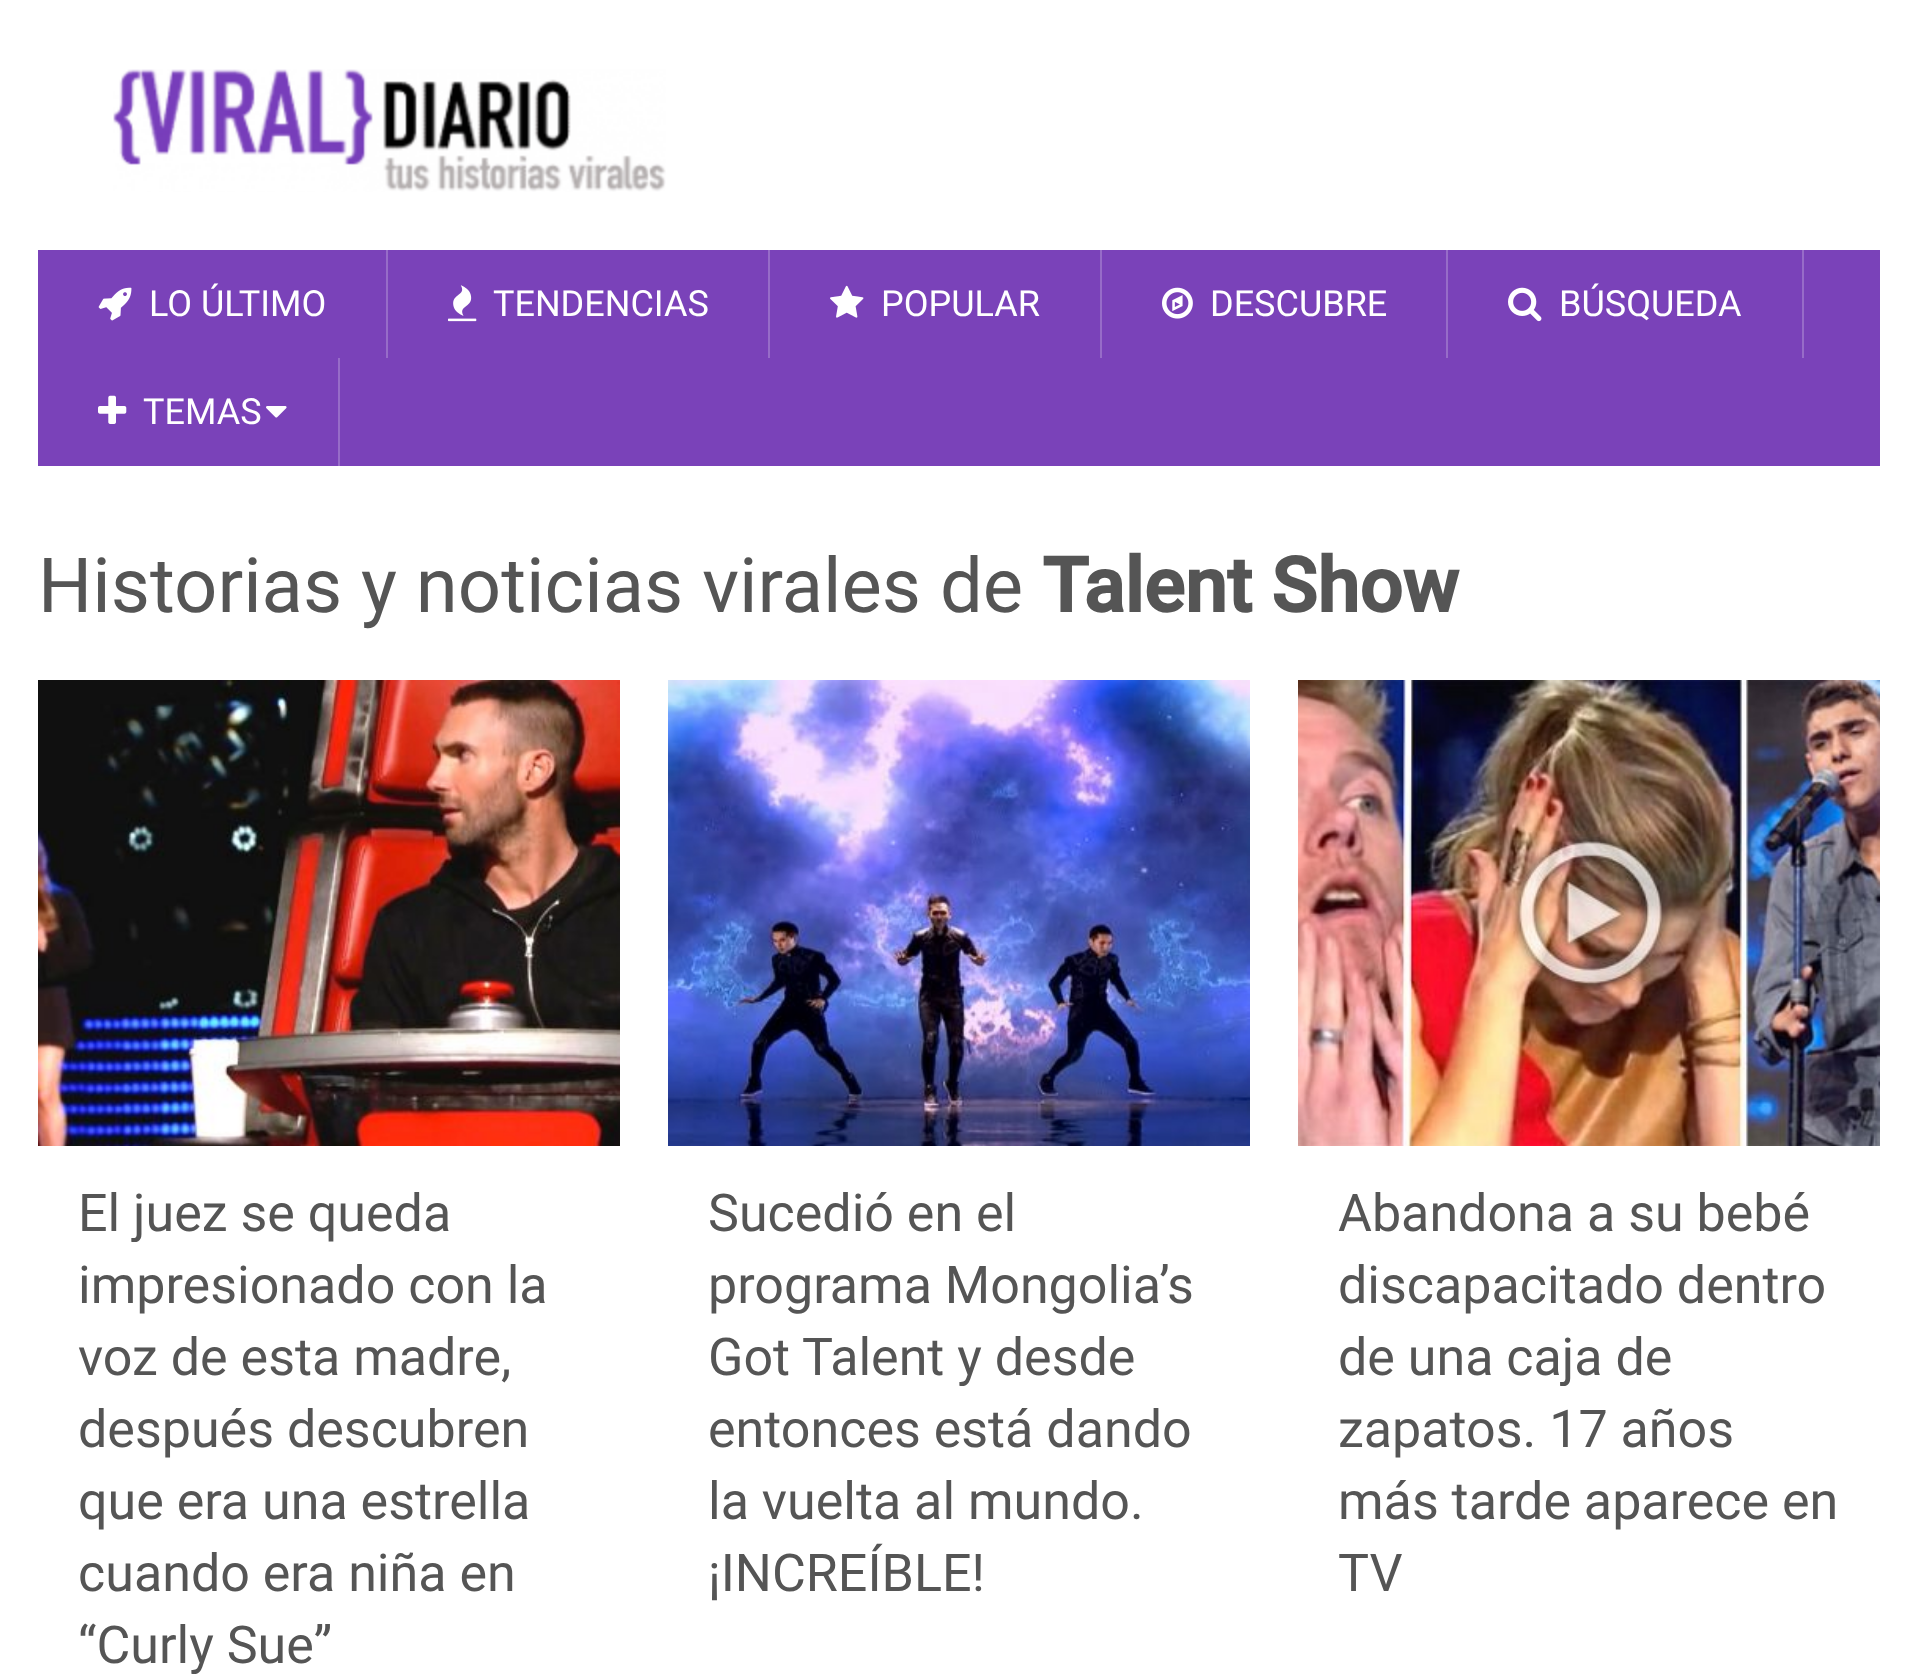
<svg xmlns="http://www.w3.org/2000/svg" width="1917" height="1677">
<style>
.a{font:36px Roboto;fill:#fff}
.b{font:76px Roboto;fill:#555}
.c{font:bold 76px Roboto;fill:#555}
.d{font:52px Roboto;fill:#555}
</style>
<rect width="100%" height="100%" fill="#fff"/>
<image href="1.png" x="113" y="69" width="553" height="123"/>
<path fill="#7a42b9" d="M38 250h1842v216H38z"/>
<path fill="#976cc8" d="M386 250h2v108H386z"/>
<image href="2.png" x="98" y="287" width="34" height="34"/>
<path fill="#976cc8" d="M768 250h2v108H768z"/>
<image href="3.png" x="448" y="285" width="29" height="37"/>
<path fill="#976cc8" d="M1100 250h2v108H1100z"/>
<image href="4.png" x="830" y="285" width="34" height="33"/>
<path fill="#976cc8" d="M1446 250h2v108H1446z"/>
<image href="5.png" x="1162" y="287" width="31" height="32"/>
<path fill="#976cc8" d="M1802 250h2v108H1802z"/>
<image href="6.png" x="1508" y="287" width="34" height="35"/>
<path fill="#976cc8" d="M338 358h2v108H338z"/>
<image href="7.png" x="98" y="395" width="29" height="29"/>
<image href="8.png" x="266" y="406" width="21" height="12"/>
<image href="9.png" x="38" y="680" width="582" height="466"/>
<image href="10.png" x="668" y="680" width="582" height="466"/>
<image href="11.png" x="1298" y="680" width="582" height="466"/>
<text class="a" x="149" y="316">LO ÚLTIMO</text>
<text class="a" x="493" y="316">TENDENCIAS</text>
<text class="a" x="881" y="316">POPULAR</text>
<text class="a" x="1210" y="316">DESCUBRE</text>
<text class="a" x="1559" y="316">BÚSQUEDA</text>
<text class="a" x="143" y="424">TEMAS</text>
<text class="b" x="38" y="612">Historias y noticias virales de</text>
<text class="c" x="1042" y="612">Talent Show</text>
<text class="d" x="78" y="1231">El juez se queda</text>
<text class="d" x="78" y="1303">impresionado con la</text>
<text class="d" x="78" y="1375">voz de esta madre,</text>
<text class="d" x="78" y="1447">después descubren</text>
<text class="d" x="78" y="1519">que era una estrella</text>
<text class="d" x="78" y="1591">cuando era niña en</text>
<text class="d" x="78" y="1663">“Curly Sue”</text>
<text class="d" x="708" y="1231">Sucedió en el</text>
<text class="d" x="708" y="1303">programa Mongolia’s</text>
<text class="d" x="708" y="1375">Got Talent y desde</text>
<text class="d" x="708" y="1447">entonces está dando</text>
<text class="d" x="708" y="1519">la vuelta al mundo.</text>
<text class="d" x="708" y="1591">¡INCREÍBLE!</text>
<text class="d" x="1338" y="1231">Abandona a su bebé</text>
<text class="d" x="1338" y="1303">discapacitado dentro</text>
<text class="d" x="1338" y="1375">de una caja de</text>
<text class="d" x="1338" y="1447">zapatos. 17 años</text>
<text class="d" x="1338" y="1519">más tarde aparece en</text>
<text class="d" x="1338" y="1591">TV</text>
</svg>
